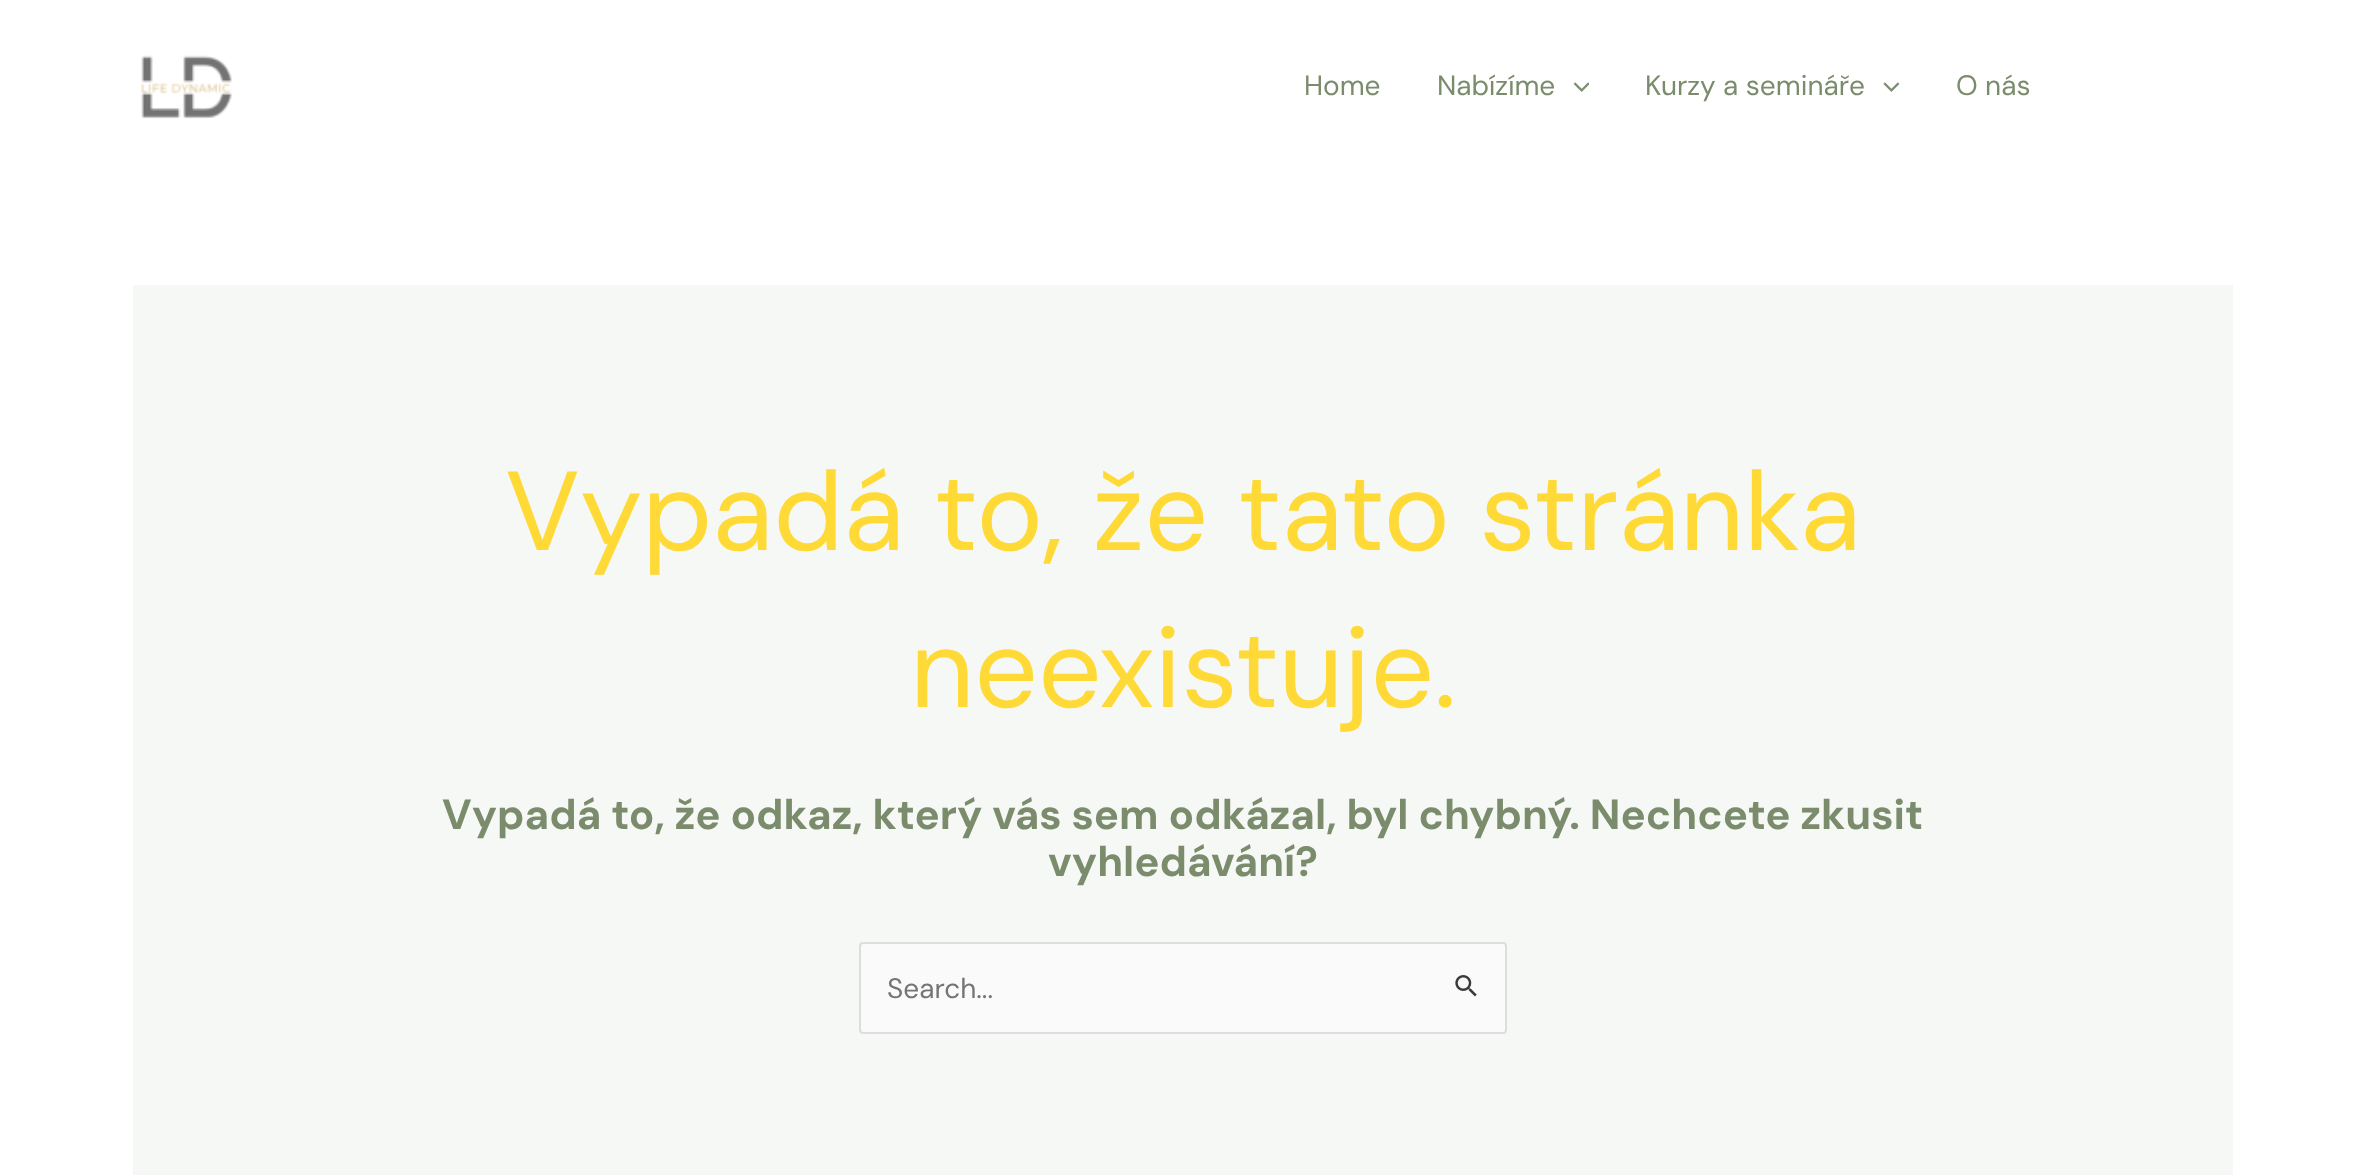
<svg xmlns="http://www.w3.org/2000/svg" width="2366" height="1175">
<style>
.a{font:28px DM Sans;fill:#7b8c6d}
.b{font:112px DM Sans;fill:#ffd936}
.c{font:bold 42px DM Sans;fill:#7b8c6d}
.d{font:28px DM Sans;fill:#757575}
</style>
<rect width="100%" height="100%" fill="#fff"/>
<image href="1.png" x="141" y="55" width="92" height="64"/>
<image href="2.png" x="1573" y="82" width="16" height="10"/>
<image href="3.png" x="1883" y="82" width="16" height="10"/>
<path fill="#f6f8f5" d="M133 285h2100v890H133z"/>
<rect fill="#fafafa" stroke="#ddd" stroke-width="2" x="860" y="943" width="646" height="90" rx="3"/>
<image href="4.png" x="1455" y="975" width="22" height="22"/>
<text class="a" x="1304" y="95">Home</text>
<text class="a" x="1437" y="95">Nabízíme</text>
<text class="a" x="1645" y="95">Kurzy a semináře</text>
<text class="a" x="1956" y="95">O nás</text>
<text class="b" x="505" y="550">Vypadá to, že tato stránka</text>
<text class="b" x="910" y="707">neexistuje.</text>
<text class="c" x="442" y="829">Vypadá to, že odkaz, který vás sem odkázal, byl chybný. Nechcete zkusit</text>
<text class="c" x="1048" y="876">vyhledávání?</text>
<text class="d" x="887" y="998">Search...</text>
</svg>
